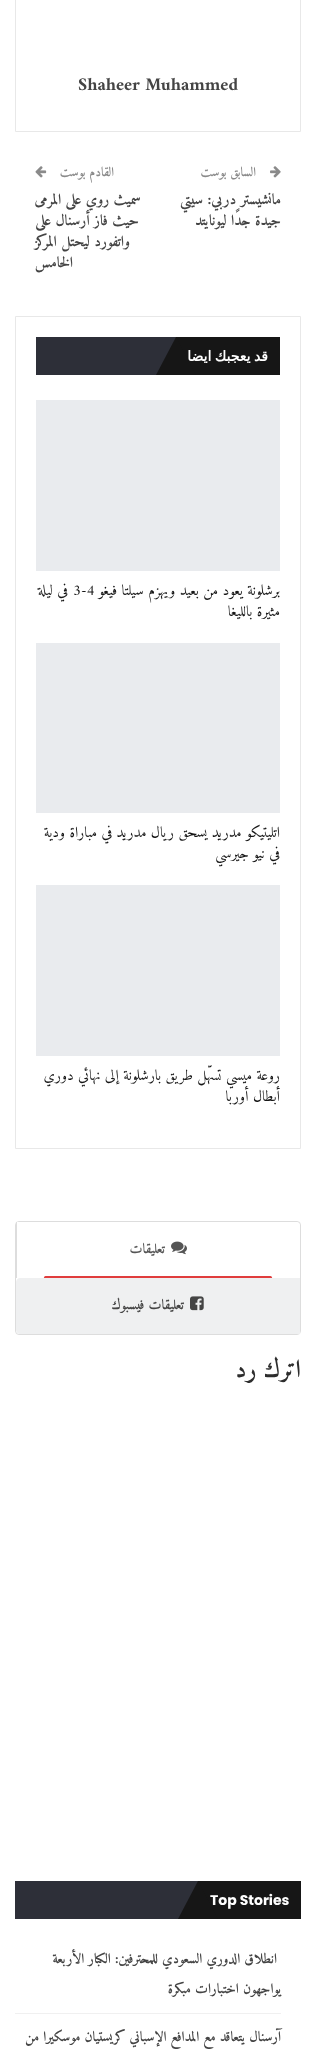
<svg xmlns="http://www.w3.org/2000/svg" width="316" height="2067">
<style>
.a{font:bold 18px Amiri;fill:#444}
.b{font:bold 13px Amiri;direction:rtl;fill:#8a8a8a}
.c{font:bold 15px Amiri;direction:rtl;fill:#444}
.d{font:bold 14px DejaVu Sans;direction:rtl;fill:#fff}
.e{font:15px Amiri;direction:rtl;fill:#161616}
.f{font:15px Amiri;fill:#161616}
.g{font:bold 14px Amiri;direction:rtl;fill:#555}
.h{font:bold 14px Amiri;direction:rtl;fill:#444}
.i{font:bold 25px Amiri;direction:rtl;fill:#2d2d2d}
.j{font:bold 14px Poppins;fill:#fff}
</style>
<rect width="100%" height="100%" fill="#fff"/>
<path fill="none" stroke="#e8e8e8" d="M15.5 -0.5h285v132H15.5z"/>
<image href="1.png" x="270" y="166" width="11" height="12"/>
<image href="2.png" x="35" y="166" width="12" height="12"/>
<path fill="none" stroke="#e8e8e8" d="M15.5 316.5h285v832H15.5z"/>
<path fill="#2d2f38" d="M36 337h140v38H36z"/>
<path fill="#161616" d="M176 337h104v38H176z"/>
<path fill="#161616" d="M196 375h-40l20-38z"/>
<path fill="#e9ebee" d="M36 400h244v171H36z"/>
<path fill="#e9ebee" d="M36 643h244v170H36z"/>
<path fill="#e9ebee" d="M36 885h244v171H36z"/>
<rect fill="none" stroke="#ddd" x="15.5" y="1221.5" width="285" height="113" rx="3.5"/>
<path fill="#fff" d="M16 1222h280c2 0 4 2 4 4v48c0 2-2 4-4 4h-280z"/>
<image href="3.png" x="171" y="1241" width="16" height="14"/>
<path fill="#ddd" d="M16 1222h1v56H16z"/>
<rect fill="#e03d3d" x="44" y="1276" width="228" height="3" rx="1.5"/>
<path fill="#eff0f1" d="M20 1278h280v56h-280c-2 0-4-2-4-4v-48c0-2 2-4 4-4z"/>
<image href="4.png" x="190" y="1296" width="14" height="15"/>
<path fill="#2d2f38" d="M15 1881h183v38H15z"/>
<path fill="#161616" d="M198 1881h103v38H198z"/>
<path fill="#161616" d="M218 1919h-40l20-38z"/>
<path fill="#f0f0f0" d="M15 2013h266v1H15z"/>
<text class="a" x="78" y="90">Shaheer Muhammed</text>
<text class="b" x="256" y="176">السابق بوست</text>
<text class="c" x="281" y="204">مانشيستر دربي: سيتي</text>
<text class="c" x="281" y="225">جيدة جدًا ليونايتد</text>
<text class="b" x="114" y="176">القادم بوست</text>
<text class="c" x="141" y="204">سميث روي على المرمى</text>
<text class="c" x="139" y="225">حيث فاز أرسنال على</text>
<text class="c" x="130" y="246">واتفورد ليحتل المركز</text>
<text class="c" x="73" y="267">الخامس</text>
<text class="d" x="268" y="361" word-spacing="-1">قد يعجبك ايضا</text>
<text class="e" x="280" y="595">برشلونة يعود من بعيد ويهزم سيلتا فيغو</text>
<text class="f" x="73" y="595">3-4</text>
<text class="e" x="68" y="595">في ليلة</text>
<text class="e" x="280" y="616">مثيرة بالليغا</text>
<text class="e" x="280" y="837">اتليتيكو مدريد يسحق ريال مدريد في مباراة ودية</text>
<text class="e" x="280" y="858">في نيو جيرسي</text>
<text class="e" x="280" y="1080">روعة ميسي تسهّل طريق بارشلونة إلى نهائي دوري</text>
<text class="e" x="280" y="1101">أبطال أوربا</text>
<text class="g" x="165" y="1253">تعليقات</text>
<text class="h" x="184" y="1309">تعليقات فيسبوك</text>
<text class="i" x="301" y="1377">اترك رد</text>
<text class="j" x="210" y="1905">Top Stories</text>
<text class="h" x="277" y="1963">انطلاق الدوري السعودي للمحترفين: الكبار الأربعة</text>
<text class="h" x="281" y="1993">يواجهون اختبارات مبكرة</text>
<text class="h" x="281" y="2041">آرسنال يتعاقد مع المدافع الإسباني كريستيان موسكيرا من</text>
</svg>
